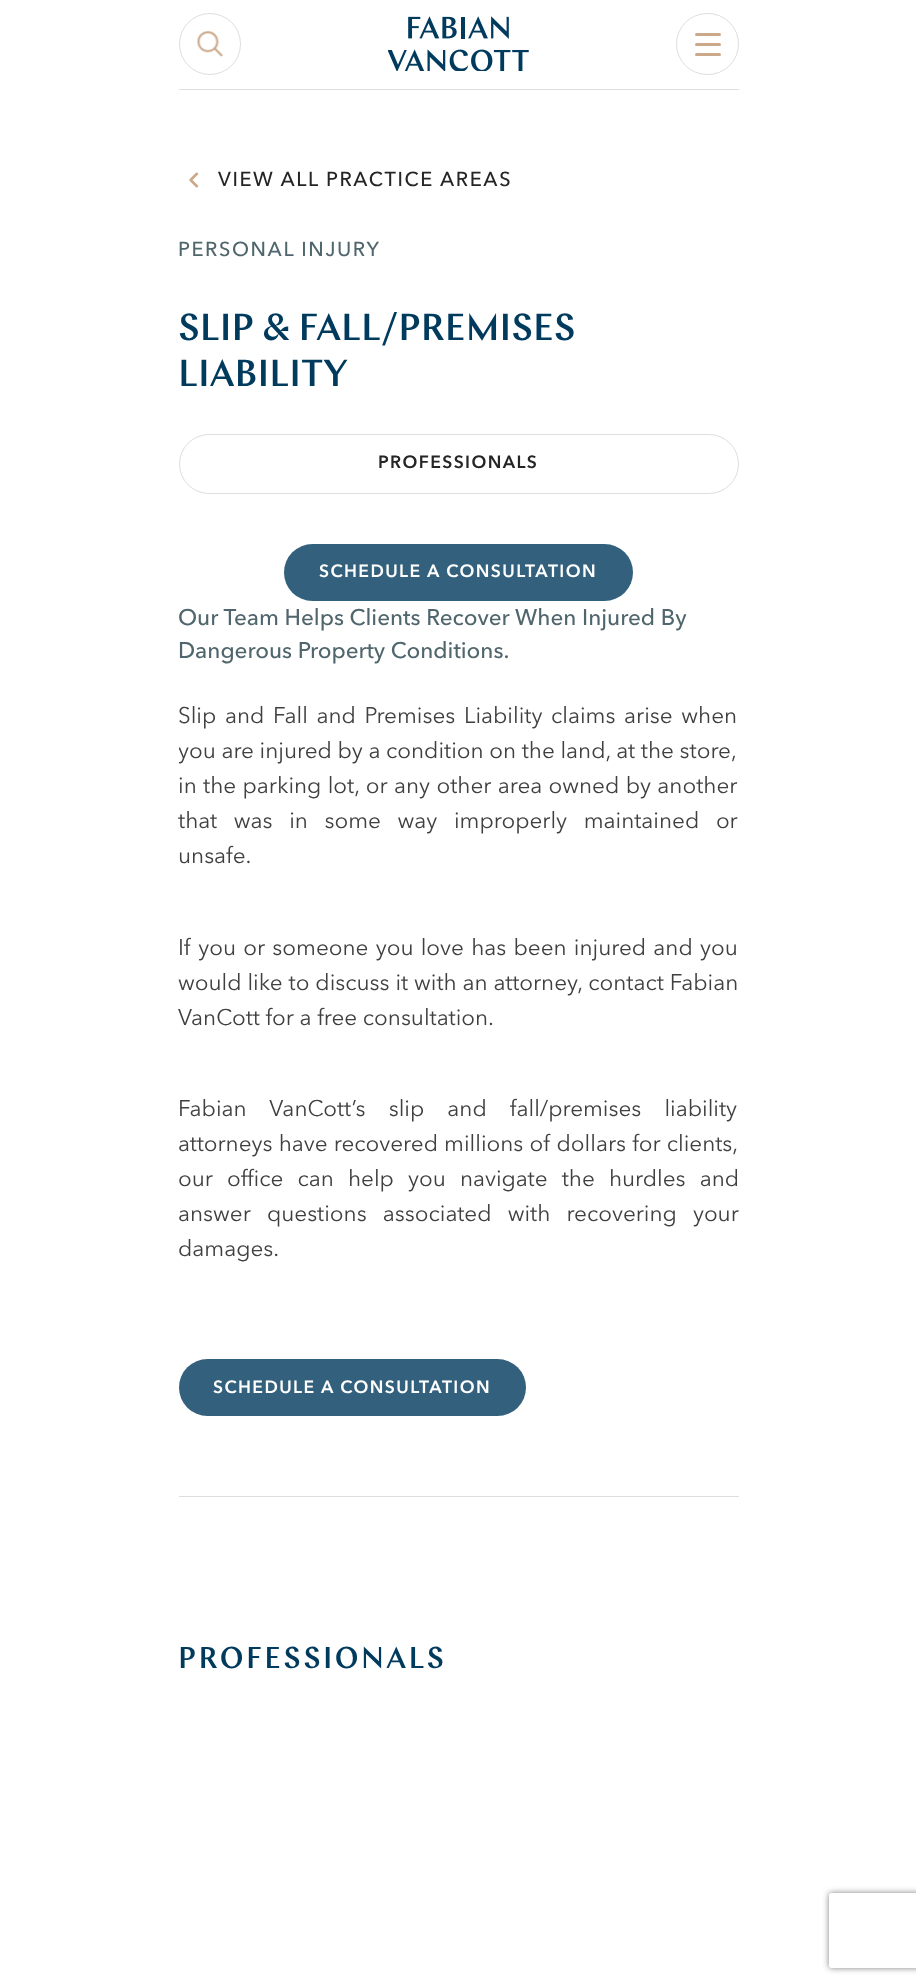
<svg xmlns="http://www.w3.org/2000/svg" width="916" height="1984">
<style>
.a{font:500 20px Avenir Next;letter-spacing:1.6px;fill:#252525}
.b{font:500 20px Avenir Next;letter-spacing:1.6px;fill:#50666d}
.c{font:500 37.5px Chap;fill:#003a5d}
.d{font:600 17.5px Avenir Next;letter-spacing:1.4px;fill:#252525}
.e{font:600 17.5px Avenir Next;letter-spacing:1.4px;fill:#fff}
.f{font:500 22.5px Avenir Next;fill:#50666d}
.g{font:22.5px Avenir Next;fill:#404040}
.h{font:500 30px Chap;letter-spacing:2.4px;fill:#003a5d}
</style>
<defs>
<clipPath id="clip1"><path d="M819 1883h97v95h-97zm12.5 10h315c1.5 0 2.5 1 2.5 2.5v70c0 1.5-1 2.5-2.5 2.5h-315c-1.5 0-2.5-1-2.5-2.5v-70c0-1.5 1-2.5 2.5-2.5z" clip-rule="evenodd"/></clipPath>
<clipPath id="clip2"><path d="M179 601h560v300H179z"/></clipPath>
</defs>
<rect width="100%" height="100%" fill="#fff"/>
<path fill="#dedede" d="M179 89h560v1H179z"/>
<circle fill="none" stroke="#dedede" cx="210" cy="44" r="30.5"/>
<image href="1.png" x="197" y="31" width="26" height="26"/>
<image href="2.png" x="388" y="16" width="141" height="55"/>
<rect fill="none" stroke="#dedede" x="676.5" y="13.5" width="62" height="61" rx="30.5"/>
<rect fill="#caa88a" x="695" y="33" width="26" height="3" rx="1.5"/>
<rect fill="#caa88a" x="695" y="43" width="26" height="3" rx="1.5"/>
<rect fill="#caa88a" x="695" y="53" width="26" height="3" rx="1.5"/>
<image href="3.png" x="189" y="172" width="10" height="16"/>
<rect fill="none" stroke="#dedede" x="179.5" y="434.5" width="559" height="59" rx="29.5"/>
<rect fill="#33617d" x="284" y="544" width="349" height="57" rx="28.5"/>
<path fill="#dedede" d="M179 1496h560v1H179z"/>
<rect fill="#33617d" x="179" y="1359" width="347" height="57" rx="28.5"/>
<g clip-path="url(#clip1)">
<rect fill="#808080" filter="blur(3px)" x="829" y="1893" width="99" height="75" rx="2.5"/>
</g>
<text class="a" x="218" y="186">VIEW ALL PRACTICE AREAS</text>
<text class="b" x="178" y="256">PERSONAL INJURY</text>
<text class="c" x="178" y="340">SLIP &amp; FALL/PREMISES</text>
<text class="c" x="178" y="386">LIABILITY</text>
<text class="d" x="378" y="468">PROFESSIONALS</text>
<text class="e" x="319" y="577">SCHEDULE A CONSULTATION</text>
<text class="f" x="178" y="625">Our Team Helps Clients Recover When Injured By</text>
<text class="f" x="178" y="658">Dangerous Property Conditions.</text>
<text class="g" x="178" y="723" word-spacing="3">Slip and Fall and Premises Liability claims arise when</text>
<g clip-path="url(#clip2)">
<text class="g" x="178" y="758">you are injured by a condition on the land, at the store,</text>
</g>
<text class="g" x="178" y="793" word-spacing="0.75">in the parking lot, or any other area owned by another</text>
<text class="g" x="178" y="828" word-spacing="11">that was in some way improperly maintained or</text>
<text class="g" x="178" y="863">unsafe.</text>
<text class="g" x="178" y="955" word-spacing="1.6">If you or someone you love has been injured and you</text>
<text class="g" x="178" y="990" word-spacing="0.25">would like to discuss it with an attorney, contact Fabian</text>
<text class="g" x="178" y="1025">VanCott for a free consultation.</text>
<text class="g" x="178" y="1116" word-spacing="17.5">Fabian VanCott’s slip and fall/premises liability</text>
<text class="g" x="178" y="1151" word-spacing="0.5">attorneys have recovered millions of dollars for clients,</text>
<text class="g" x="178" y="1186" word-spacing="8.5">our office can help you navigate the hurdles and</text>
<text class="g" x="178" y="1221" word-spacing="10.5">answer questions associated with recovering your</text>
<text class="g" x="178" y="1256">damages.</text>
<text class="e" x="213" y="1393">SCHEDULE A CONSULTATION</text>
<text class="h" x="178" y="1668">PROFESSIONALS</text>
</svg>
